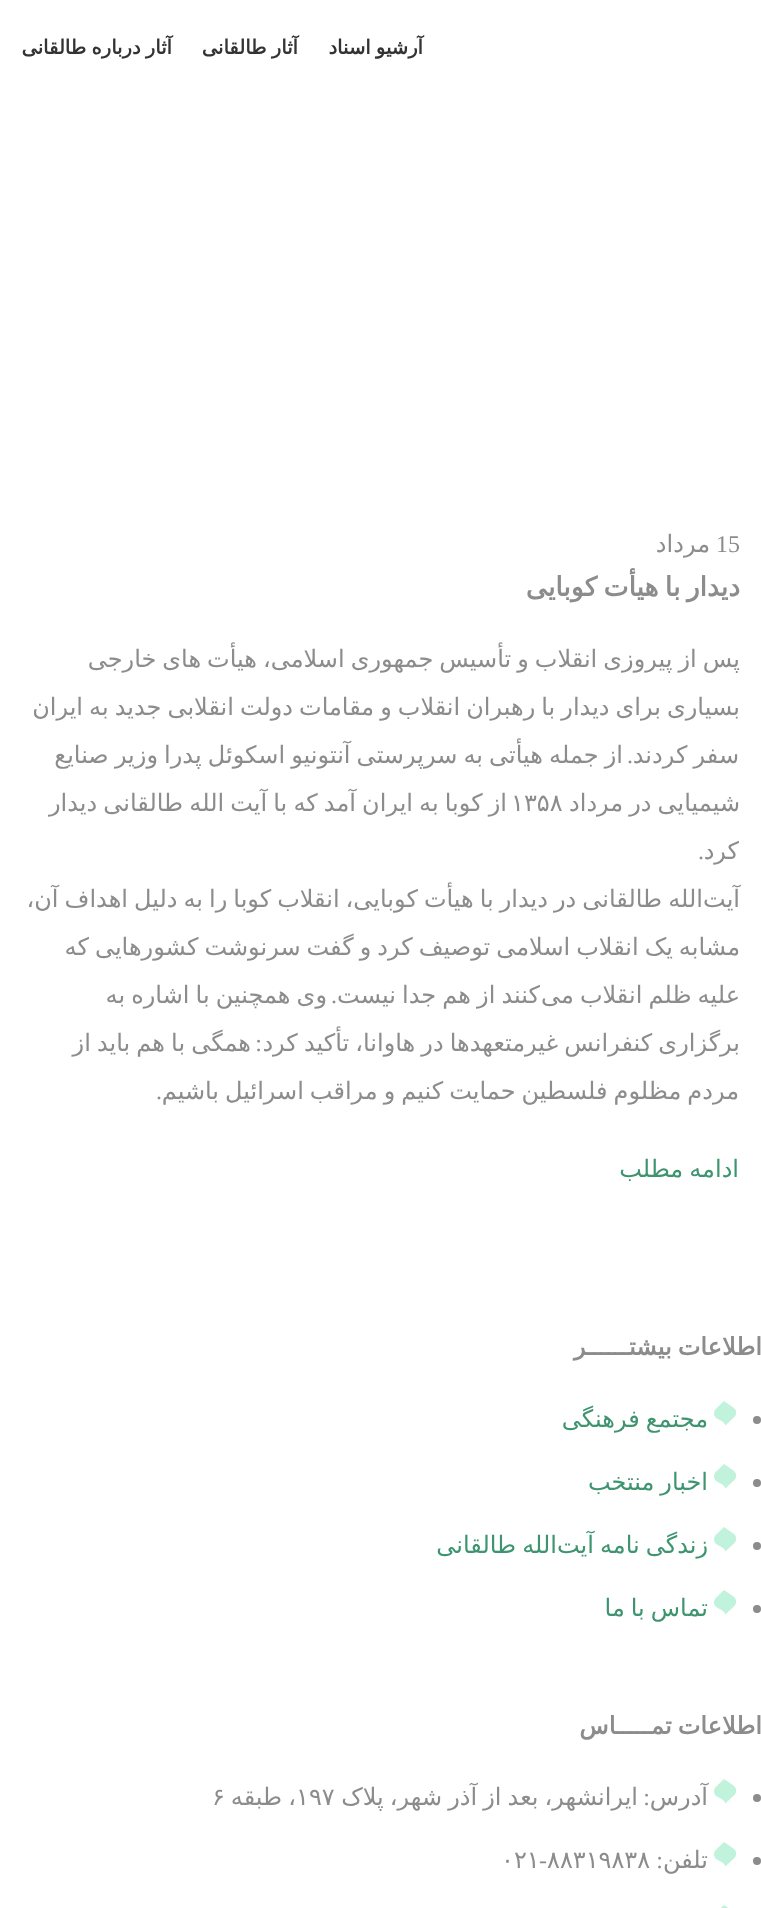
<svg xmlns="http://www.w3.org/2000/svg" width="761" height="1908">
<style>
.a{font:bold 19.5px DejaVu Sans;direction:rtl;fill:#333}
.b{font:24px Liberation Serif;fill:#8c8c8c}
.c{font:24px DejaVu Sans;direction:rtl;fill:#8c8c8c}
.d{font:bold 26.5px DejaVu Sans;direction:rtl;fill:#8c8c8c}
.e{font:24px Liberation Serif;direction:rtl;fill:#8c8c8c}
.f{font:24px DejaVu Sans;fill:#8c8c8c}
.g{font:24px DejaVu Sans;direction:rtl;fill:#3e946f}
.h{font:bold 24px DejaVu Sans;direction:rtl;fill:#8c8c8c}
</style>
<rect width="100%" height="100%" fill="#fff"/>
<circle fill="#8c8c8c" cx="757" cy="1420" r="4"/>
<image href="1.png" x="714" y="1401" width="23" height="25"/>
<circle fill="#8c8c8c" cx="757" cy="1483" r="4"/>
<image href="1.png" x="714" y="1464" width="23" height="25"/>
<circle fill="#8c8c8c" cx="757" cy="1546" r="4"/>
<image href="1.png" x="714" y="1527" width="23" height="25"/>
<circle fill="#8c8c8c" cx="757" cy="1609" r="4"/>
<image href="1.png" x="714" y="1590" width="23" height="25"/>
<circle fill="#8c8c8c" cx="757" cy="1798" r="4"/>
<image href="1.png" x="714" y="1779" width="23" height="25"/>
<circle fill="#8c8c8c" cx="757" cy="1861" r="4"/>
<image href="1.png" x="714" y="1842" width="23" height="25"/>
<image href="2.png" x="721" y="1905" width="7" height="3"/>
<text class="a" x="423" y="54" word-spacing="-1">آرشیو اسناد</text>
<text class="a" x="298" y="54" word-spacing="-1">آثار طالقانی</text>
<text class="a" x="172" y="54" word-spacing="-1">آثار درباره طالقانی</text>
<text class="b" x="716" y="552">15</text>
<text class="c" x="710" y="552">مرداد</text>
<text class="d" x="740" y="596" word-spacing="-2">دیدار با هیأت کوبایی</text>
<text class="c" x="740" y="667" word-spacing="-1.6">پس از پیروزی انقلاب و تأسیس جمهوری اسلامی، هیأت های خارجی</text>
<text class="c" x="740" y="715" word-spacing="-1.6">بسیاری برای دیدار با رهبران انقلاب و مقامات دولت انقلابی جدید به ایران</text>
<text class="c" x="739" y="763" word-spacing="-1.5">سفر کردند</text>
<text class="e" x="633" y="763">.</text>
<text class="c" x="623" y="763" word-spacing="-1.5">از جمله هیأتی به سرپرستی آنتونیو اسکوئل پدرا وزیر صنایع</text>
<text class="c" x="740" y="811" word-spacing="-1.6">شیمیایی در مرداد</text>
<text class="f" x="511" y="811">۱۳۵۸</text>
<text class="c" x="507" y="811" word-spacing="-1.5">از کوبا به ایران آمد که با آیت الله طالقانی دیدار</text>
<text class="c" x="739" y="859">کرد</text>
<text class="e" x="704" y="859">.</text>
<text class="c" x="740" y="907">آیت</text>
<text class="c" x="703" y="907" word-spacing="-1.6">الله طالقانی در دیدار با هیأت کوبایی، انقلاب کوبا را به دلیل اهداف آن،</text>
<text class="c" x="740" y="955" word-spacing="-1.6">مشابه یک انقلاب اسلامی توصیف کرد و گفت سرنوشت کشورهایی که</text>
<text class="c" x="740" y="1003" word-spacing="-1.5">علیه ظلم انقلاب می</text>
<text class="c" x="540" y="1003" word-spacing="-1.5">کنند از هم جدا نیست</text>
<text class="e" x="337" y="1003">.</text>
<text class="c" x="327" y="1003" word-spacing="-1.5">وی همچنین با اشاره به</text>
<text class="c" x="740" y="1051" word-spacing="-1.5">برگزاری کنفرانس غیرمتعهدها در هاوانا، تأکید کرد</text>
<text class="e" x="262" y="1051">:</text>
<text class="c" x="251" y="1051" word-spacing="-1.5">همگی با هم باید از</text>
<text class="c" x="739" y="1099" word-spacing="-1.6">مردم مظلوم فلسطین حمایت کنیم و مراقب اسرائیل باشیم</text>
<text class="e" x="162" y="1099">.</text>
<text class="g" x="739" y="1177" word-spacing="-1.6">ادامه مطلب</text>
<text class="h" x="762" y="1355" word-spacing="-1.6">اطلاعات بیشتــــــر</text>
<text class="g" x="708" y="1427" word-spacing="-1.6">مجتمع فرهنگی</text>
<text class="g" x="708" y="1490" word-spacing="-1.6">اخبار منتخب</text>
<text class="g" x="708" y="1553" word-spacing="-1.6">زندگی نامه آیت</text>
<text class="g" x="557" y="1553" word-spacing="-1.6">الله طالقانی</text>
<text class="g" x="708" y="1616" word-spacing="-1.6">تماس با ما</text>
<text class="h" x="762" y="1734" word-spacing="-1.6">اطلاعات تمـــــاس</text>
<text class="c" x="708" y="1805">آدرس</text>
<text class="e" x="650" y="1805">:</text>
<text class="c" x="638" y="1805" word-spacing="-1.5">ایرانشهر، بعد از آذر شهر، پلاک</text>
<text class="f" x="296" y="1805">۱۹۷</text>
<text class="c" x="296" y="1805" word-spacing="-1.6">، طبقه</text>
<text class="f" x="212" y="1805">۶</text>
<text class="c" x="708" y="1868">تلفن</text>
<text class="e" x="663" y="1868">:</text>
<text class="f" x="547" y="1868">۸۸۳۱۹۸۳۸</text>
<text class="b" x="539" y="1868">-</text>
<text class="f" x="501" y="1868">۰۲۱</text>
</svg>
